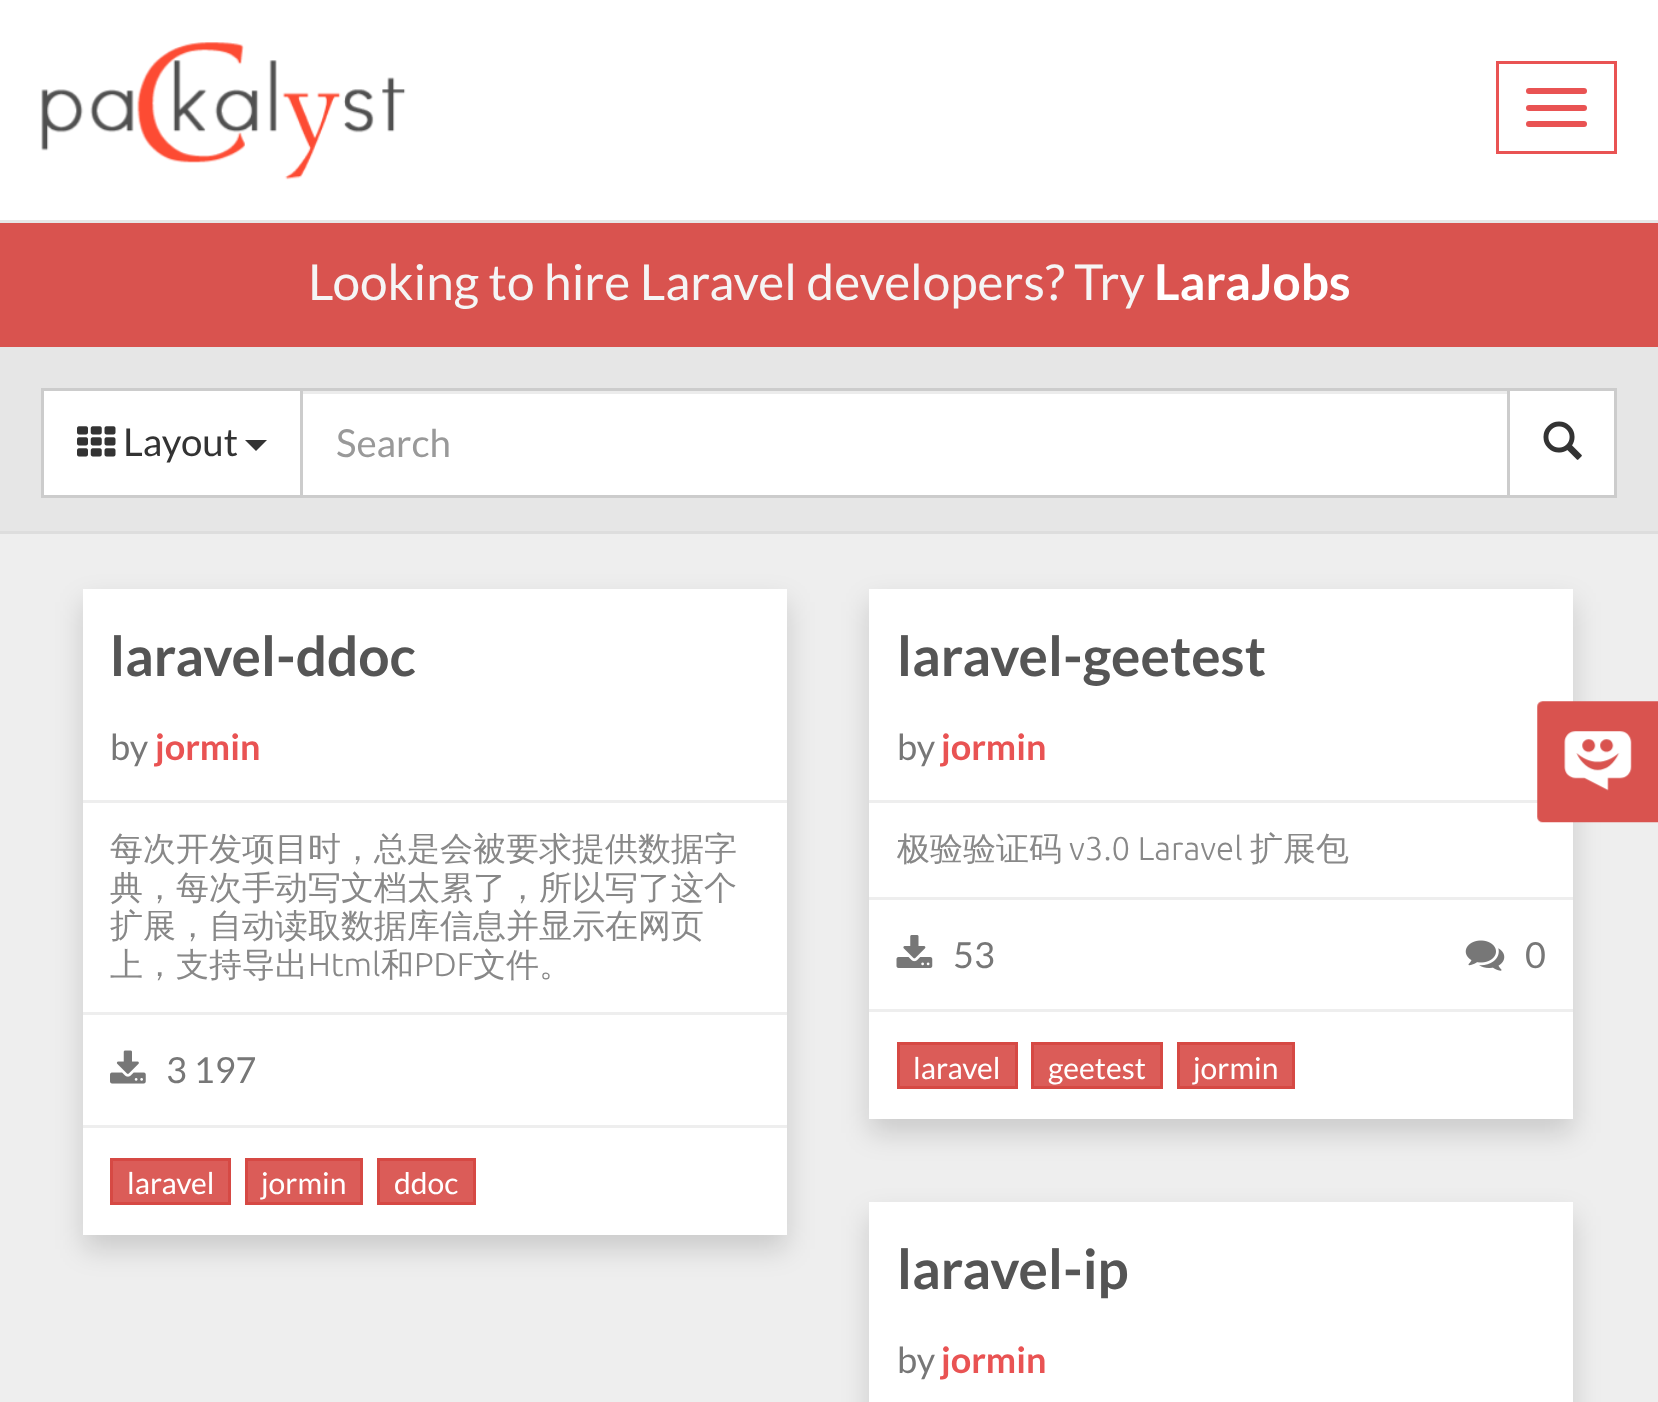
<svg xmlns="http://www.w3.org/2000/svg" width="1658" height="1402">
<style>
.a{font:49.5px Lato;fill:#f5f5f5}
.b{font:bold 49.5px Lato;fill:#fff}
.c{font:38.5px Lato;fill:#333}
.d{font:38.5px Lato;fill:#999}
.e{font:bold 55px Lato;fill:#555}
.f{font:36px Lato;fill:#777}
.g{font:bold 36px Lato;fill:#e95353}
.h{font:500 33px WenQuanYi Zen Hei;fill:#888}
.i{font:300 33px Ubuntu;fill:#888}
.j{font:30px Lato;fill:#fff}
</style>
<rect width="100%" height="100%" fill="#d9534f"/>
<path fill="#fff" d="M0 0h1658v220H0z"/>
<path fill="#e7e7e7" d="M0 220h1658v3H0z"/>
<image href="1.png" x="41" y="42" width="365" height="138"/>
<path fill="none" stroke="#e95353" stroke-width="3" d="M1497.5 62.5h118v90H1497.5z"/>
<rect fill="#e95353" x="1526" y="88" width="61" height="6" rx="3"/>
<rect fill="#e95353" x="1526" y="105" width="61" height="6" rx="3"/>
<rect fill="#e95353" x="1526" y="121" width="61" height="6" rx="3"/>
<path fill="#eee" d="M0 534h1658v868H0z"/>
<path fill="#e6e6e6" d="M0 347h1658v184H0z"/>
<path fill="#ddd" d="M0 531h1658v3H0z"/>
<path fill="#fff" stroke="#ccc" stroke-width="3" d="M42.5 389.5h259v107H42.5z"/>
<image href="2.png" x="77" y="426" width="39" height="31"/>
<path fill="#333" d="M245 440h22l-11 11z"/>
<path fill="#fff" d="M303 394h1204v101H303z"/>
<path fill="#ececec" d="M303 391h1204v3H303z"/>
<path fill="none" stroke="#ccc" stroke-width="3" d="M301.5 389.5h1207v107H301.5z"/>
<path fill="#fff" stroke="#ccc" stroke-width="3" d="M1508.5 389.5h107v107H1508.5z"/>
<image href="3.png" x="1543" y="421" width="39" height="39"/>
<path fill="#00000026" filter="blur(14px)" d="M83 602h704v647H83z"/>
<path fill="#fff" d="M83 589h704v646H83z"/>
<path fill="#eee" d="M83 800h704v3H83z"/>
<path fill="#eee" d="M83 1012h704v3H83z"/>
<image href="4.png" x="110" y="1050" width="36" height="34"/>
<path fill="#eee" d="M83 1125h704v3H83z"/>
<path fill="#db5c58" stroke="#d64944" stroke-width="3" d="M111.5 1159.5h118v44H111.5z"/>
<path fill="#db5c58" stroke="#d64944" stroke-width="3" d="M246.5 1159.5h115v44H246.5z"/>
<path fill="#db5c58" stroke="#d64944" stroke-width="3" d="M378.5 1159.5h96v44H378.5z"/>
<path fill="#00000026" filter="blur(14px)" d="M869 602h704v531H869z"/>
<path fill="#fff" d="M869 589h704v530H869z"/>
<path fill="#eee" d="M869 800h669v3H869z"/>
<path fill="#eee" d="M869 897h704v3H869z"/>
<image href="5.png" x="896" y="935" width="37" height="33"/>
<image href="6.png" x="1465" y="940" width="40" height="31"/>
<path fill="#eee" d="M869 1009h704v3H869z"/>
<path fill="#db5c58" stroke="#d64944" stroke-width="3" d="M898.5 1043.5h118v44H898.5z"/>
<path fill="#db5c58" stroke="#d64944" stroke-width="3" d="M1032.5 1043.5h129v44H1032.5z"/>
<path fill="#db5c58" stroke="#d64944" stroke-width="3" d="M1178.5 1043.5h115v44H1178.5z"/>
<path fill="#00000026" filter="blur(14px)" d="M869 1216h704v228H869z"/>
<path fill="#fff" d="M869 1202h704v200H869z"/>
<image href="7.png" x="1537" y="701" width="121" height="122"/>
<text class="a" x="308" y="300">Looking to hire Laravel developers? Try</text>
<text class="b" x="1154" y="300">LaraJobs</text>
<text class="c" x="123" y="456">Layout</text>
<text class="d" x="336" y="457">Search</text>
<text class="e" x="110" y="676">laravel-ddoc</text>
<text class="f" x="110" y="760">by</text>
<text class="g" x="155" y="760">jormin</text>
<text class="h" x="110" y="860">每次开发项目时，总是会被要求提供数据字</text>
<text class="h" x="110" y="899">典，每次手动写文档太累了，所以写了这个</text>
<text class="h" x="110" y="937">扩展，自动读取数据库信息并显示在网页</text>
<text class="h" x="110" y="976">上，支持导出</text>
<text class="i" x="308" y="976">Html</text>
<text class="h" x="381" y="976">和</text>
<text class="i" x="414" y="976">PDF</text>
<text class="h" x="473" y="976">文件。</text>
<text class="f" x="166" y="1083">3 197</text>
<text class="j" x="127" y="1194">laravel</text>
<text class="j" x="261" y="1194">jormin</text>
<text class="j" x="394" y="1194">ddoc</text>
<text class="e" x="897" y="676">laravel-geetest</text>
<text class="f" x="897" y="760">by</text>
<text class="g" x="941" y="760">jormin</text>
<text class="h" x="897" y="860">极验验证码</text>
<text class="i" x="1069" y="860">v3.0 Laravel</text>
<text class="h" x="1250" y="860">扩展包</text>
<text class="f" x="953" y="968">53</text>
<text class="f" x="1525" y="968">0</text>
<text class="j" x="913" y="1079">laravel</text>
<text class="j" x="1048" y="1079">geetest</text>
<text class="j" x="1193" y="1079">jormin</text>
<text class="e" x="897" y="1289">laravel-ip</text>
<text class="f" x="897" y="1373">by</text>
<text class="g" x="941" y="1373">jormin</text>
</svg>
